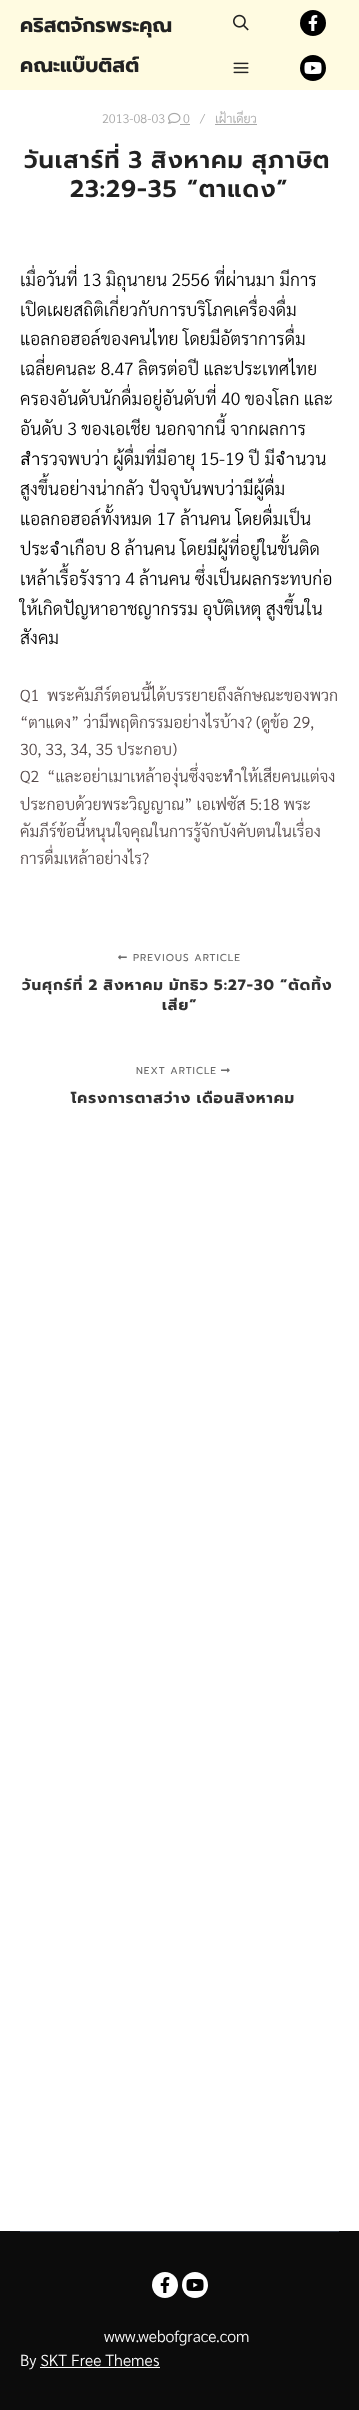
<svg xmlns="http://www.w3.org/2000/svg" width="359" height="2410">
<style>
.a{font:bold 20px Prompt;fill:#222}
.b{font:300 12.5px Sarabun;fill:#a7a7a7}
.c{font:600 24px Prompt;letter-spacing:1px;fill:#222}
.d{font:300 17.6px Sarabun;fill:#000}
.e{font:300 16px Sarabun;fill:#544848}
.f{font:10px Prompt;letter-spacing:1px;fill:#6a6a6a}
.g{font:bold 15px Prompt;letter-spacing:1px;fill:#333}
.h{font:300 16px Sarabun;fill:#fff}
</style>
<defs>
<clipPath id="clip1"><path d="M20 110h319v94H20z"/></clipPath>
</defs>
<rect width="100%" height="100%" fill="#fff"/>
<path fill="#fffbe1" d="M0 0h359v90H0z"/>
<image href="1.png" x="233" y="14" width="16" height="17"/>
<image href="2.png" x="233" y="62" width="16" height="12"/>
<circle fill="#000" cx="313" cy="23" r="13"/>
<image href="3.png" x="308" y="15" width="10" height="16"/>
<circle fill="#000" cx="313" cy="68" r="13"/>
<image href="4.png" x="304" y="62" width="18" height="12"/>
<image href="5.png" x="168" y="112" width="13" height="12"/>
<path fill="#a7a7a7" d="M180 124h10v1H180z"/>
<path fill="#a7a7a7" d="M215 124h42v1H215z"/>
<image href="6.png" x="118" y="955" width="9" height="5"/>
<image href="7.png" x="221" y="1068" width="9" height="5"/>
<path fill="#0c0c0c" d="M0 2231h359v179H0z"/>
<path fill="#39404a" d="M20 2231h319v1H20z"/>
<circle fill="#fff" cx="165" cy="2285" r="13"/>
<image href="8.png" x="160" y="2277" width="10" height="16"/>
<circle fill="#fff" cx="195" cy="2285" r="13"/>
<image href="9.png" x="186" y="2279" width="18" height="12"/>
<path fill="#fff" d="M40 2367h120v1H40z"/>
<text class="a" x="20" y="32">คริสตจักรพระคุณ</text>
<text class="a" x="20" y="72">คณะแบ๊บติสต์</text>
<text class="b" x="102" y="123">2013-08-03</text>
<text class="b" x="183" y="123">0</text>
<text class="b" x="200" y="123">/</text>
<g clip-path="url(#clip1)">
<text class="b" x="215" y="123">เฝ้าเดี่ยว</text>
<text class="c" x="24" y="168" word-spacing="-1.5">วันเสาร์ที่ 3 สิงหาคม สุภาษิต</text>
</g>
<text class="c" x="70" y="197">23:29-35 “ตาแดง”</text>
<text class="d" x="20" y="286">เมื่อวันที่ 13 มิถุนายน 2556 ที่ผ่านมา มีการ</text>
<text class="d" x="20" y="316">เปิดเผยสถิติเกี่ยวกับการบริโภคเครื่องดื่ม</text>
<text class="d" x="20" y="345">แอลกอฮอล์ของคนไทย โดยมีอัตราการดื่ม</text>
<text class="d" x="20" y="375">เฉลี่ยคนละ 8.47 ลิตรต่อปี และประเทศไทย</text>
<text class="d" x="20" y="405">ครองอันดับนักดื่มอยู่อันดับที่ 40 ของโลก และ</text>
<text class="d" x="20" y="435">อันดับ 3 ของเอเชีย นอกจากนี้ จากผลการ</text>
<text class="d" x="20" y="465">สำรวจพบว่า ผู้ดื่มที่มีอายุ 15-19 ปี มีจำนวน</text>
<text class="d" x="20" y="495">สูงขึ้นอย่างน่ากลัว ปัจจุบันพบว่ามีผู้ดื่ม</text>
<text class="d" x="20" y="525">แอลกอฮอล์ทั้งหมด 17 ล้านคน โดยดื่มเป็น</text>
<text class="d" x="20" y="555">ประจำเกือบ 8 ล้านคน โดยมีผู้ที่อยู่ในขั้นติด</text>
<text class="d" x="20" y="585">เหล้าเรื้อรังราว 4 ล้านคน ซึ่งเป็นผลกระทบก่อ</text>
<text class="d" x="20" y="615">ให้เกิดปัญหาอาชญากรรม อุบัติเหตุ สูงขึ้นใน</text>
<text class="d" x="20" y="644">สังคม</text>
<text class="e" xml:space="preserve" x="20" y="701">Q1  พระคัมภีร์ตอนนี้ได้บรรยายถึงลักษณะของพวก</text>
<text class="e" x="20" y="728">“ตาแดง” ว่ามีพฤติกรรมอย่างไรบ้าง? (ดูข้อ 29,</text>
<text class="e" x="20" y="755">30, 33, 34, 35 ประกอบ)</text>
<text class="e" xml:space="preserve" x="20" y="782">Q2  “และอย่าเมาเหล้าองุ่นซึ่งจะทำให้เสียคนแต่จง</text>
<text class="e" x="20" y="810">ประกอบด้วยพระวิญญาณ” เอเฟซัส 5:18 พระ</text>
<text class="e" x="20" y="837">คัมภีร์ข้อนี้หนุนใจคุณในการรู้จักบังคับตนในเรื่อง</text>
<text class="e" x="20" y="864">การดื่มเหล้าอย่างไร?</text>
<text class="f" x="133" y="961">PREVIOUS ARTICLE</text>
<text class="g" x="22" y="990" word-spacing="-1">วันศุกร์ที่ 2 สิงหาคม มัทธิว 5:27-30 “ตัดทิ้ง</text>
<text class="g" x="162" y="1010">เสีย”</text>
<text class="f" x="136" y="1074">NEXT ARTICLE</text>
<text class="g" x="71" y="1103" word-spacing="-1">โครงการตาสว่าง เดือนสิงหาคม</text>
<text class="h" x="104" y="2342">www.webofgrace.com</text>
<text class="h" x="20" y="2366">By SKT Free Themes</text>
</svg>
